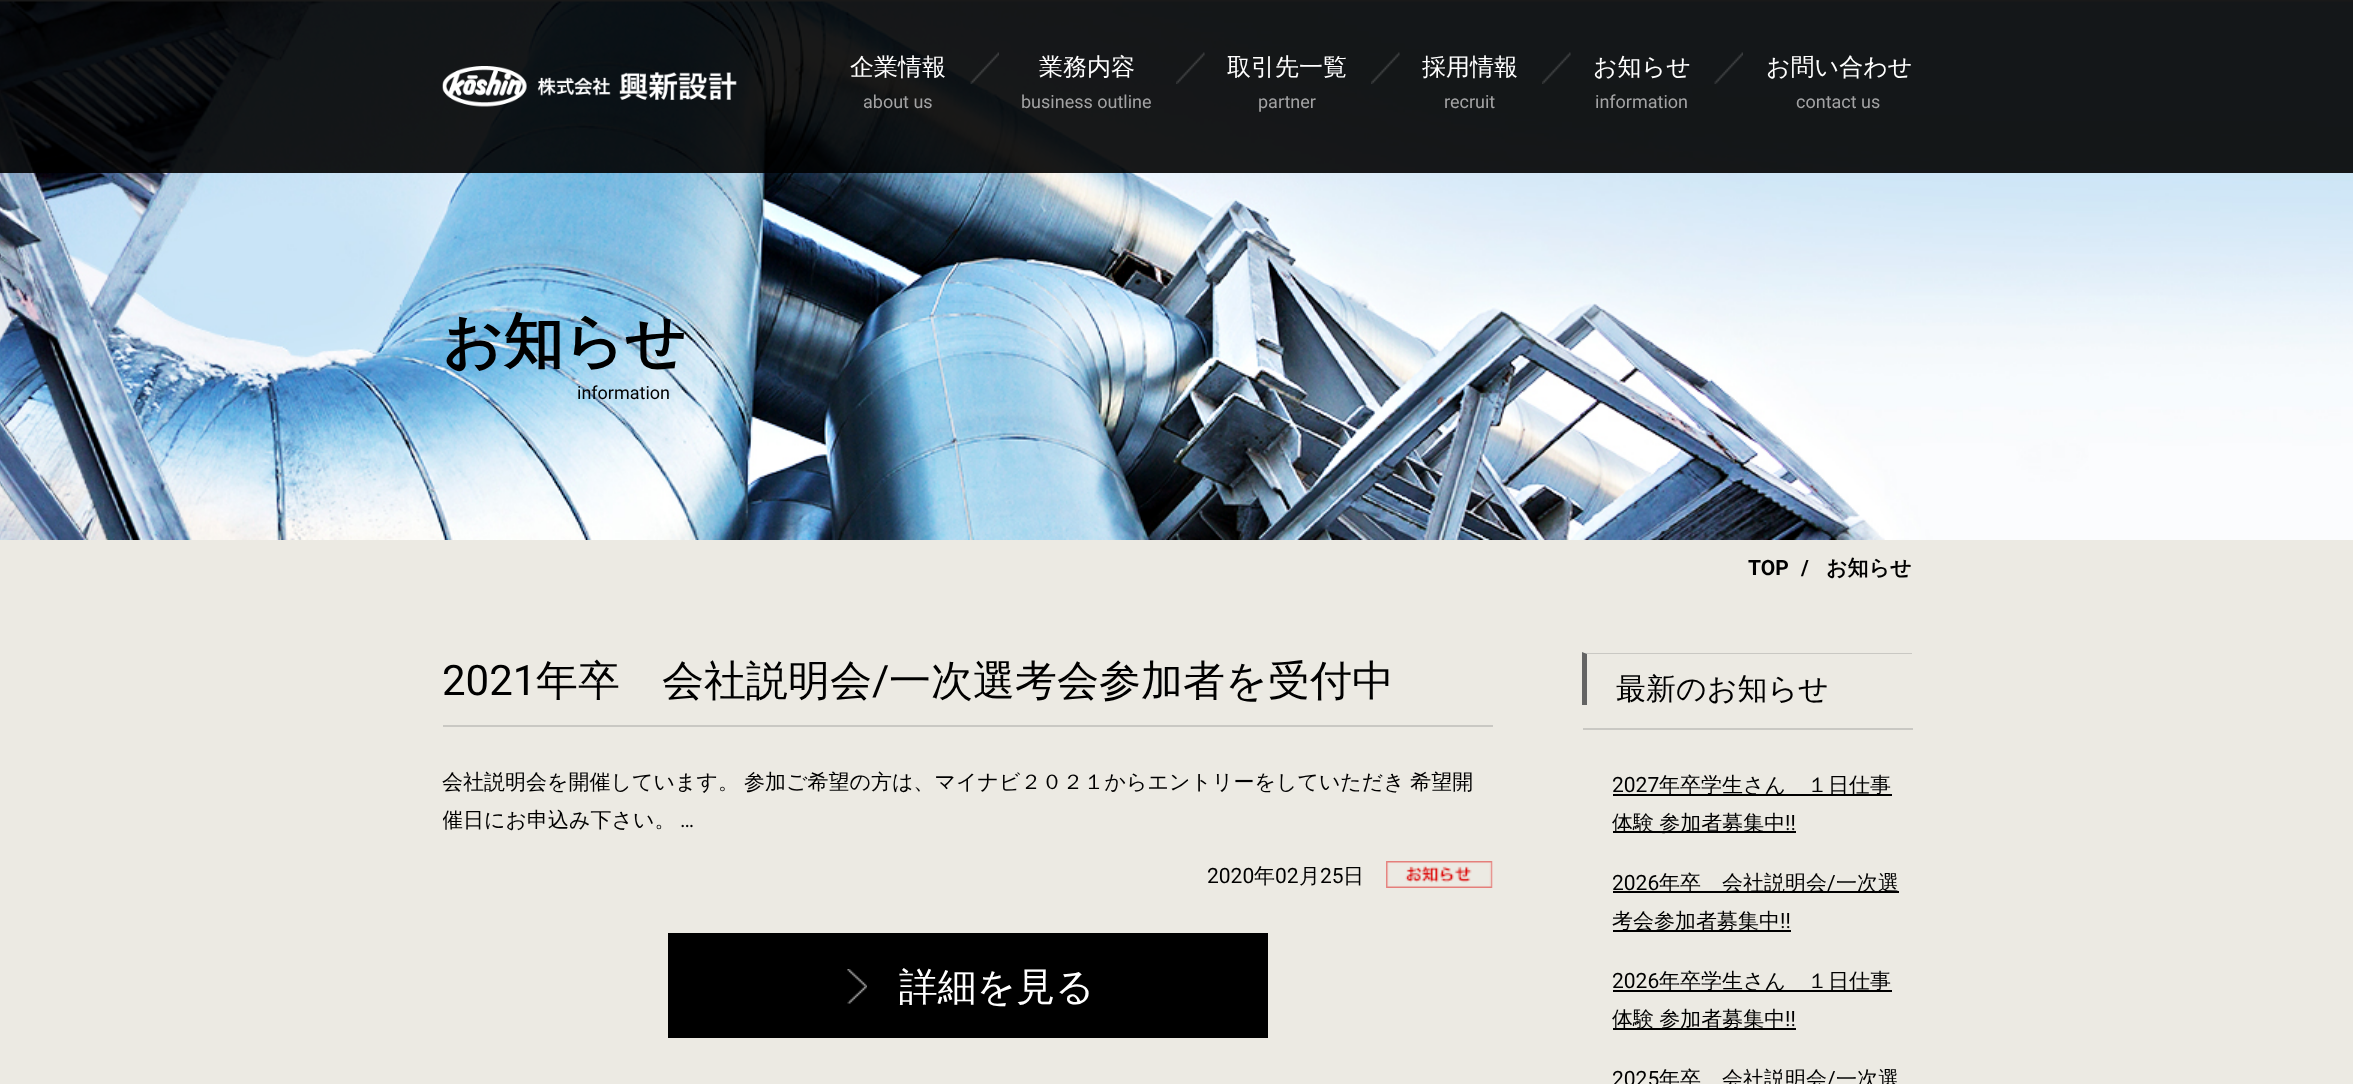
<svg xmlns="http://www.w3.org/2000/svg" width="2353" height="1084">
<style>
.a{font:500 24px WenQuanYi Zen Hei;fill:#fff}
.b{font:18px Roboto;fill:#a3a3a4}
.c{font:bold 60px WenQuanYi Zen Hei;fill:#000}
.d{font:18px Roboto;fill:#000}
.e{font:bold 21px Roboto;fill:#000}
.f{font:bold 21px WenQuanYi Zen Hei;fill:#000}
.g{font:42px Roboto;fill:#000}
.h{font:500 42px WenQuanYi Zen Hei;fill:#000}
.i{font:500 21px WenQuanYi Zen Hei;fill:#000}
.j{font:21px Roboto;fill:#000}
.k{font:500 38.75px WenQuanYi Zen Hei;fill:#fff}
.l{font:500 30px WenQuanYi Zen Hei;fill:#000}
</style>
<defs>
<clipPath id="clip1"><path d="M443 653h1470v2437H443z"/></clipPath>
<clipPath id="clip2"><path d="M443 764h1050v75H443z"/></clipPath>
</defs>
<rect width="100%" height="100%" fill="#fff"/>
<image href="7.png" x="0" y="1" width="2353" height="539"/>
<path fill="#000000e6" d="M0 0h2353v173H0z"/>
<image href="1.png" x="442" y="66" width="295" height="41"/>
<image href="2.png" x="970" y="52" width="29" height="32"/>
<image href="3.png" x="1176" y="52" width="29" height="32"/>
<image href="4.png" x="1371" y="52" width="29" height="32"/>
<image href="5.png" x="1542" y="52" width="29" height="32"/>
<image href="6.png" x="1714" y="52" width="29" height="32"/>
<path fill="#eceae3" d="M0 540h2353v544H0z"/>
<path fill="#c9c8c3" d="M443 725h1050v2H443z"/>
<image href="8.png" x="1386" y="861" width="107" height="27"/>
<path fill="#000" d="M668 933h600v105H668z"/>
<image href="9.png" x="847" y="969" width="20" height="35"/>
<g clip-path="url(#clip1)">
<path fill="#c9c8c3" d="M1582 652h330v2h-325z"/>
</g>
<path fill="#646464" d="M1582 705v-53l5 2v51z"/>
<path fill="#c9c8c3" d="M1583 728h330v2H1583z"/>
<path fill="#000" d="M1613 794h279v2H1613z"/>
<path fill="#000" d="M1613 831h183v2H1613z"/>
<path fill="#000" d="M1613 891h286v2H1613z"/>
<path fill="#000" d="M1613 930h178v2H1613z"/>
<path fill="#000" d="M1613 990h279v2H1613z"/>
<path fill="#000" d="M1613 1028h183v2H1613z"/>
<text class="a" x="850" y="75">企業情報</text>
<text class="b" x="863" y="108">about us</text>
<text class="a" x="1039" y="75">業務内容</text>
<text class="b" x="1021" y="108">business outline</text>
<text class="a" x="1227" y="75">取引先一覧</text>
<text class="b" x="1258" y="108">partner</text>
<text class="a" x="1422" y="75">採用情報</text>
<text class="b" x="1444" y="108">recruit</text>
<text class="a" x="1593" y="75">お知らせ</text>
<text class="b" x="1595" y="108">information</text>
<text class="a" x="1766" y="75">お問い合わせ</text>
<text class="b" x="1796" y="108">contact us</text>
<text class="c" x="442" y="362">お知らせ</text>
<text class="d" x="577" y="399">information</text>
<text class="e" x="1748" y="575">TOP</text>
<text class="e" x="1801" y="575">/</text>
<text class="f" x="1826" y="575">お知らせ</text>
<text class="g" x="442" y="695">2021</text>
<text class="h" x="536" y="695">年卒　会社説明会</text>
<text class="g" x="872" y="695">/</text>
<text class="h" x="889" y="695">一次選考会参加者を受付中</text>
<text class="i" x="442" y="789">会社説明会を開催しています。</text>
<text class="i" x="744" y="789" word-spacing="-1">参加ご希望の方は、マイナビ２０２１からエントリーをしていただき 希望開</text>
<g clip-path="url(#clip2)">
<text class="i" x="442" y="827">催日にお申込み下さい。</text>
</g>
<text class="j" x="680" y="827">…</text>
<text class="j" x="1207" y="883">2020</text>
<text class="i" x="1254" y="883">年</text>
<text class="j" x="1275" y="883">02</text>
<text class="i" x="1299" y="883">月</text>
<text class="j" x="1320" y="883">25</text>
<text class="i" x="1343" y="883">日</text>
<text class="k" x="899" y="1000">詳細を見る</text>
<text class="l" x="1616" y="699">最新のお知らせ</text>
<text class="j" x="1612" y="792">2027</text>
<text class="i" x="1659" y="792">年卒学生さん　１日仕事</text>
<text class="i" x="1612" y="830" word-spacing="-1">体験 参加者募集中</text>
<text class="j" x="1785" y="830">‼</text>
<text class="j" x="1612" y="890">2026</text>
<text class="i" x="1659" y="890">年卒　会社説明会</text>
<text class="j" x="1827" y="890">/</text>
<text class="i" x="1836" y="890">一次選</text>
<text class="i" x="1612" y="928">考会参加者募集中</text>
<text class="j" x="1780" y="928">‼</text>
<text class="j" x="1612" y="988">2026</text>
<text class="i" x="1659" y="988">年卒学生さん　１日仕事</text>
<text class="i" x="1612" y="1026" word-spacing="-1">体験 参加者募集中</text>
<text class="j" x="1785" y="1026">‼</text>
<text class="j" x="1612" y="1086">2025</text>
<text class="i" x="1659" y="1086">年卒　会社説明会</text>
<text class="j" x="1827" y="1086">/</text>
<text class="i" x="1836" y="1086">一次選</text>
</svg>
